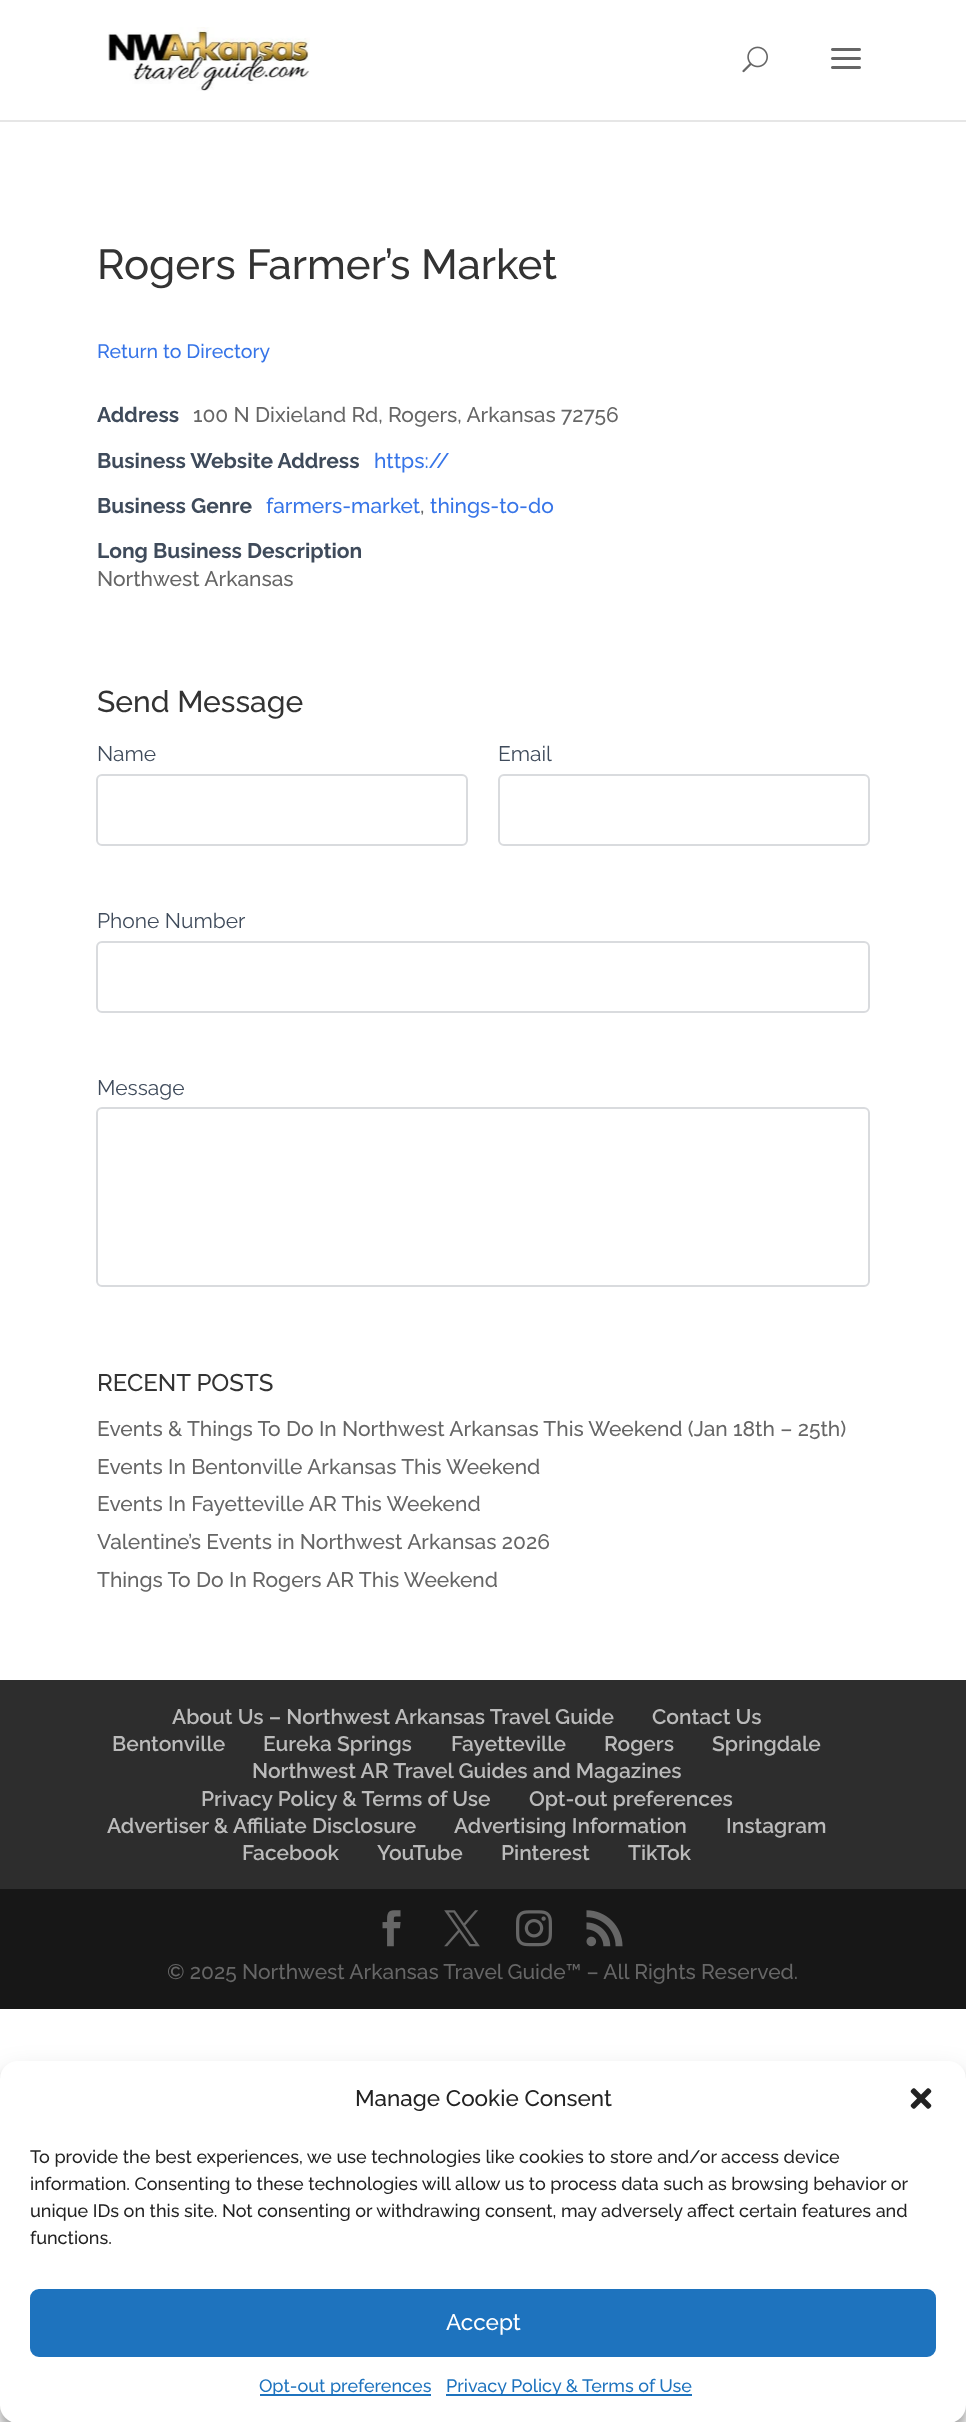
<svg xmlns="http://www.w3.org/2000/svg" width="966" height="2422">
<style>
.a{font:500 42px Raleway;fill:#333}
.b{font:500 19.5px Raleway;fill:#3775e8}
.c{font:bold 21px Raleway;fill:#3f4b5b}
.d{font:500 21px Raleway;fill:#666}
.e{font:500 21px Raleway;fill:#3775e8}
.f{font:500 30px Raleway;fill:#333}
.g{font:21px Raleway;fill:#3f4b5b}
.h{font:500 24px Raleway;fill:#333}
.i{font:600 21px Raleway;fill:#bbb}
.j{font:500 22.5px Raleway;fill:#222}
.k{font:500 18px Raleway;fill:#222}
.l{font:500 22.5px Raleway;fill:#fff}
.m{font:500 18px Raleway;fill:#1e73be}
</style>
<rect width="100%" height="100%" fill="#fff"/>
<path fill="#e6e6e6" d="M0 120h966v2H0z"/>
<image href="1.png" x="108" y="27" width="202" height="64"/>
<image href="2.png" x="742" y="46" width="26" height="27"/>
<image href="3.png" x="831" y="48" width="30" height="21"/>
<rect fill="none" stroke="#d9dbde" stroke-width="2" x="97" y="775" width="370" height="70" rx="5"/>
<rect fill="none" stroke="#d9dbde" stroke-width="2" x="499" y="775" width="370" height="70" rx="5"/>
<rect fill="none" stroke="#d9dbde" stroke-width="2" x="97" y="942" width="772" height="70" rx="5"/>
<rect fill="none" stroke="#d9dbde" stroke-width="2" x="97" y="1108" width="772" height="178" rx="5"/>
<path fill="#2d2d2d" d="M0 1680h966v209H0z"/>
<path fill="#171717" d="M0 1889h966v120H0z"/>
<image href="4.png" x="382" y="1910" width="19" height="37"/>
<image href="5.png" x="444" y="1910" width="36" height="37"/>
<image href="6.png" x="516" y="1910" width="36" height="37"/>
<image href="7.png" x="586" y="1910" width="37" height="37"/>
<rect fill="#0000003b" filter="blur(4.5px)" y="2070" width="966" height="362" rx="18"/>
<rect fill="#00000030" filter="blur(15px)" y="2076" width="966" height="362" rx="18"/>
<rect fill="#fff" y="2061" width="966" height="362" rx="18"/>
<image href="8.png" x="910" y="2088" width="22" height="21"/>
<rect fill="#1e73be" stroke="#1e73be" stroke-width="2" x="31" y="2290" width="904" height="66" rx="8"/>
<path fill="#1e73be" d="M260 2394h171v2H260z"/>
<path fill="#1e73be" d="M446 2394h246v2H446z"/>
<text class="a" x="97" y="279">Rogers Farmer’s Market</text>
<text class="b" x="97" y="358">Return to Directory</text>
<text class="c" x="97" y="422">Address</text>
<text class="d" x="193" y="422">100 N Dixieland Rd, Rogers, Arkansas 72756</text>
<text class="c" x="97" y="468">Business Website Address</text>
<text class="e" x="374" y="468">https://</text>
<text class="c" x="97" y="513">Business Genre</text>
<text class="e" x="266" y="513">farmers-market</text>
<text class="d" x="420" y="513">,</text>
<text class="e" x="430" y="513">things-to-do</text>
<text class="c" x="97" y="558">Long Business Description</text>
<text class="d" x="97" y="586">Northwest Arkansas</text>
<text class="f" x="97" y="712">Send Message</text>
<text class="g" x="97" y="761">Name</text>
<text class="g" x="498" y="761">Email</text>
<text class="g" x="97" y="928">Phone Number</text>
<text class="g" x="97" y="1095">Message</text>
<text class="h" x="97" y="1391">RECENT POSTS</text>
<text class="d" x="97" y="1436">Events &amp; Things To Do In Northwest Arkansas This Weekend (Jan 18th – 25th)</text>
<text class="d" x="97" y="1474">Events In Bentonville Arkansas This Weekend</text>
<text class="d" x="97" y="1511">Events In Fayetteville AR This Weekend</text>
<text class="d" x="97" y="1549">Valentine’s Events in Northwest Arkansas 2026</text>
<text class="d" x="97" y="1587">Things To Do In Rogers AR This Weekend</text>
<text class="i" x="172" y="1724">About Us – Northwest Arkansas Travel Guide</text>
<text class="i" x="652" y="1724">Contact Us</text>
<text class="i" x="112" y="1751">Bentonville</text>
<text class="i" x="263" y="1751">Eureka Springs</text>
<text class="i" x="451" y="1751">Fayetteville</text>
<text class="i" x="604" y="1751">Rogers</text>
<text class="i" x="712" y="1751">Springdale</text>
<text class="i" x="252" y="1778">Northwest AR Travel Guides and Magazines</text>
<text class="i" x="201" y="1806">Privacy Policy &amp; Terms of Use</text>
<text class="i" x="529" y="1806">Opt-out preferences</text>
<text class="i" x="107" y="1833">Advertiser &amp; Affiliate Disclosure</text>
<text class="i" x="454" y="1833">Advertising Information</text>
<text class="i" x="726" y="1833">Instagram</text>
<text class="i" x="242" y="1860">Facebook</text>
<text class="i" x="377" y="1860">YouTube</text>
<text class="i" x="501" y="1860">Pinterest</text>
<text class="i" x="628" y="1860">TikTok</text>
<text class="d" x="167" y="1979">© 2025 Northwest Arkansas Travel Guide™ – All Rights Reserved.</text>
<text class="j" x="355" y="2106">Manage Cookie Consent</text>
<text class="k" x="30" y="2163">To provide the best experiences, we use technologies like cookies to store and/or access device</text>
<text class="k" x="30" y="2190">information. Consenting to these technologies will allow us to process data such as browsing behavior or</text>
<text class="k" x="30" y="2217">unique IDs on this site. Not consenting or withdrawing consent, may adversely affect certain features and</text>
<text class="k" x="30" y="2244">functions.</text>
<text class="l" x="446" y="2330">Accept</text>
<text class="m" x="259" y="2392">Opt-out preferences</text>
<text class="m" x="446" y="2392">Privacy Policy &amp; Terms of Use</text>
</svg>
